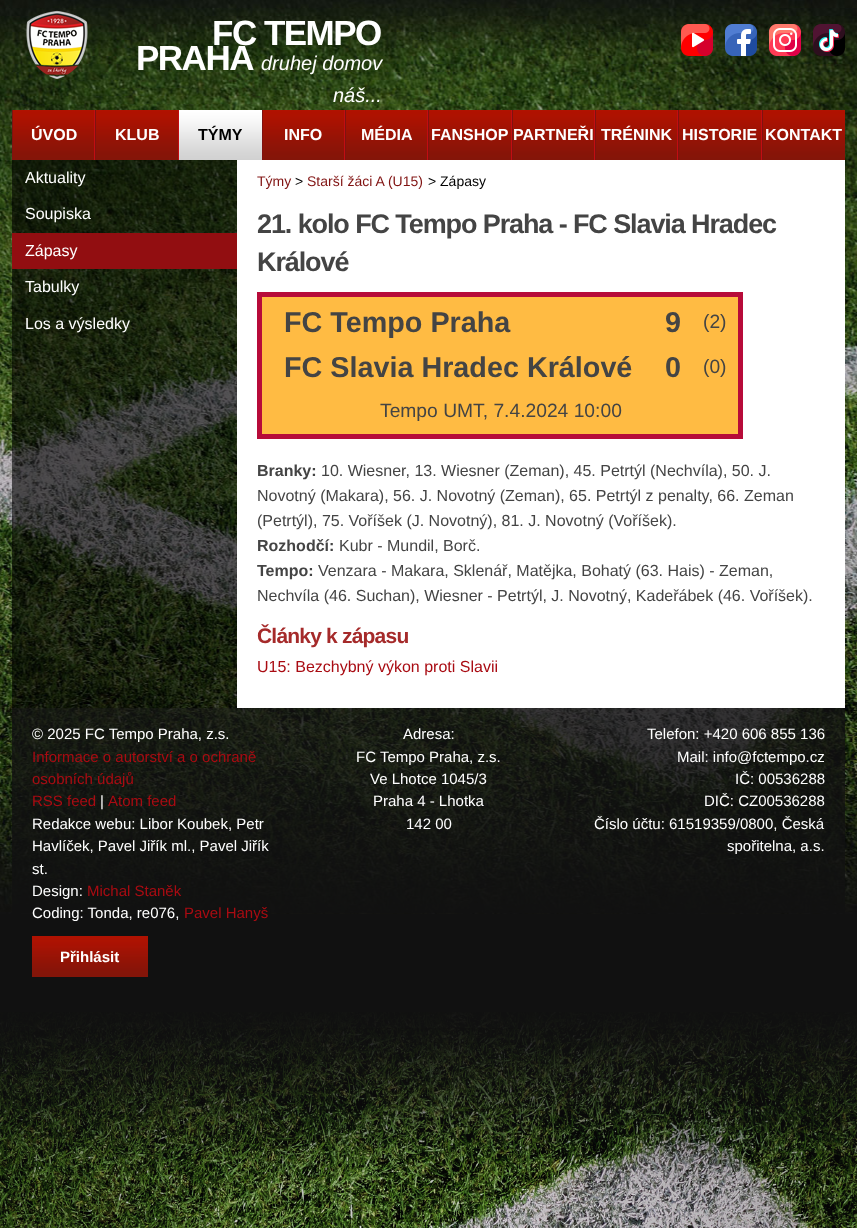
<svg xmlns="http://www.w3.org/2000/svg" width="857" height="1228">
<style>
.a{font:bold 35px Liberation Sans;letter-spacing:-1.5px;fill:#fff}
.b{font:italic 20px Liberation Sans;fill:#fff}
.c{font:bold 16px Liberation Sans;fill:#fff}
.d{font:bold 16px Liberation Sans;fill:#000}
.e{font:16px Liberation Sans;fill:#fff}
.f{font:14px Liberation Sans;fill:#801211}
.g{font:14px Liberation Sans;fill:#000}
.h{font:bold 27px Liberation Sans;letter-spacing:-1.1px;fill:#444}
.i{font:bold 28.75px Liberation Sans;fill:#444}
.j{font:19.25px Liberation Sans;fill:#444}
.k{font:bold 16px Liberation Sans;fill:#444}
.l{font:16px Liberation Sans;fill:#444}
.m{font:bold 21px Liberation Sans;letter-spacing:-0.8px;fill:#a52a2a}
.n{font:16px Liberation Sans;fill:#a90b12}
.o{font:15px Liberation Sans;fill:#fff}
.p{font:15px Liberation Sans;fill:#a90b12}
.q{font:bold 15px Liberation Sans;fill:#fff}
</style>
<rect width="100%" height="100%" fill="#111"/>
<image href="1.png" x="0" y="0" width="857" height="914"/>
<image href="2.png" x="0" y="1012" width="857" height="216"/>
<image href="3.png" x="26" y="10" width="62" height="70"/>
<image href="4.png" x="681" y="24" width="32" height="32"/>
<image href="5.png" x="725" y="24" width="32" height="32"/>
<image href="6.png" x="769" y="24" width="32" height="32"/>
<image href="7.png" x="813" y="24" width="32" height="32"/>
<image href="8.png" x="13" y="110" width="81" height="50"/>
<path fill="#c20d12" d="M94 110h1v50H94z"/>
<path fill="#7f1211" d="M12 110h1v50H12z"/>
<image href="9.png" x="96" y="110" width="82" height="50"/>
<path fill="#c20d12" d="M178 110h1v50H178z"/>
<path fill="#7f1211" d="M95 110h1v50H95z"/>
<image href="10.png" x="179" y="110" width="83" height="50"/>
<image href="8.png" x="263" y="110" width="81" height="50"/>
<path fill="#c20d12" d="M344 110h1v50H344z"/>
<path fill="#7f1211" d="M262 110h1v50H262z"/>
<image href="8.png" x="346" y="110" width="81" height="50"/>
<path fill="#c20d12" d="M427 110h1v50H427z"/>
<path fill="#7f1211" d="M345 110h1v50H345z"/>
<image href="9.png" x="429" y="110" width="82" height="50"/>
<path fill="#c20d12" d="M511 110h1v50H511z"/>
<path fill="#7f1211" d="M428 110h1v50H428z"/>
<image href="8.png" x="513" y="110" width="81" height="50"/>
<path fill="#c20d12" d="M594 110h1v50H594z"/>
<path fill="#7f1211" d="M512 110h1v50H512z"/>
<image href="8.png" x="596" y="110" width="81" height="50"/>
<path fill="#c20d12" d="M677 110h1v50H677z"/>
<path fill="#7f1211" d="M595 110h1v50H595z"/>
<image href="9.png" x="679" y="110" width="82" height="50"/>
<path fill="#c20d12" d="M761 110h1v50H761z"/>
<path fill="#7f1211" d="M678 110h1v50H678z"/>
<image href="9.png" x="763" y="110" width="82" height="50"/>
<path fill="#7f1211" d="M762 110h1v50H762z"/>
<path fill="#00000099" d="M12 160h225v548H12z"/>
<path fill="#920e11" d="M12 233h225v36H12z"/>
<path fill="#fff" d="M237 160h608v548H237z"/>
<path fill="#ffbb43" stroke="#b70b39" stroke-width="5" d="M259.5 294.5h481v142H259.5z"/>
<path fill="#111111cc" d="M12 708h833v205H12z"/>
<image href="11.png" x="32" y="936" width="116" height="41"/>
<text class="a" x="212" y="45">FC TEMPO</text>
<text class="a" x="136" y="70">PRAHA</text>
<text class="b" x="261" y="70">druhej domov</text>
<text class="b" x="333" y="102">náš...</text>
<text class="c" x="31" y="140">ÚVOD</text>
<text class="c" x="115" y="140">KLUB</text>
<text class="d" x="198" y="140">TÝMY</text>
<text class="c" x="284" y="140">INFO</text>
<text class="c" x="361" y="140">MÉDIA</text>
<text class="c" x="431" y="140">FANSHOP</text>
<text class="c" x="513" y="140">PARTNEŘI</text>
<text class="c" x="601" y="140">TRÉNINK</text>
<text class="c" x="682" y="140">HISTORIE</text>
<text class="c" x="765" y="140">KONTAKT</text>
<text class="e" x="25" y="183">Aktuality</text>
<text class="e" x="25" y="219">Soupiska</text>
<text class="e" x="25" y="256">Zápasy</text>
<text class="e" x="25" y="292">Tabulky</text>
<text class="e" x="25" y="329">Los a výsledky</text>
<text class="f" x="257" y="186">Týmy</text>
<text class="g" x="295" y="186">&gt;</text>
<text class="f" x="307" y="186">Starší žáci A (U15)</text>
<text class="g" x="428" y="186">&gt; Zápasy</text>
<text class="h" x="257" y="233">21. kolo FC Tempo Praha - FC Slavia Hradec</text>
<text class="h" x="257" y="271">Králové</text>
<text class="i" x="284" y="332">FC Tempo Praha</text>
<text class="i" x="665" y="332">9</text>
<text class="j" x="703" y="328">(2)</text>
<text class="i" x="284" y="377">FC Slavia Hradec Králové</text>
<text class="i" x="665" y="377">0</text>
<text class="j" x="703" y="373">(0)</text>
<text class="j" x="380" y="417">Tempo UMT, 7.4.2024 10:00</text>
<text class="k" x="257" y="476">Branky:</text>
<text class="l" x="321" y="476">10. Wiesner, 13. Wiesner (Zeman), 45. Petrtýl (Nechvíla), 50. J.</text>
<text class="l" x="257" y="501">Novotný (Makara), 56. J. Novotný (Zeman), 65. Petrtýl z penalty, 66. Zeman</text>
<text class="l" x="257" y="526">(Petrtýl), 75. Voříšek (J. Novotný), 81. J. Novotný (Voříšek).</text>
<text class="k" x="257" y="551">Rozhodčí:</text>
<text class="l" x="339" y="551">Kubr - Mundil, Borč.</text>
<text class="k" x="257" y="576">Tempo:</text>
<text class="l" x="318" y="576">Venzara - Makara, Sklenář, Matějka, Bohatý (63. Hais) - Zeman,</text>
<text class="l" x="257" y="601">Nechvíla (46. Suchan), Wiesner - Petrtýl, J. Novotný, Kadeřábek (46. Voříšek).</text>
<text class="m" x="257" y="643">Články k zápasu</text>
<text class="n" x="257" y="672">U15: Bezchybný výkon proti Slavii</text>
<text class="o" x="32" y="739">© 2025 FC Tempo Praha, z.s.</text>
<text class="p" x="32" y="762">Informace o autorství a o ochraně</text>
<text class="p" x="32" y="784">osobních údajů</text>
<text class="p" x="32" y="806">RSS feed</text>
<text class="o" x="100" y="806">|</text>
<text class="p" x="108" y="806">Atom feed</text>
<text class="o" x="32" y="829">Redakce webu: Libor Koubek, Petr</text>
<text class="o" x="32" y="851">Havlíček, Pavel Jiřík ml., Pavel Jiřík</text>
<text class="o" x="32" y="874">st.</text>
<text class="o" x="32" y="896">Design:</text>
<text class="p" x="87" y="896">Michal Staněk</text>
<text class="o" x="32" y="918">Coding: Tonda, re076,</text>
<text class="p" x="184" y="918">Pavel Hanyš</text>
<text class="o" x="403" y="739">Adresa:</text>
<text class="o" x="356" y="762">FC Tempo Praha, z.s.</text>
<text class="o" x="370" y="784">Ve Lhotce 1045/3</text>
<text class="o" x="373" y="806">Praha 4 - Lhotka</text>
<text class="o" x="406" y="829">142 00</text>
<text class="o" x="647" y="739">Telefon: +420 606 855 136</text>
<text class="o" x="677" y="762">Mail: info@fctempo.cz</text>
<text class="o" x="735" y="784">IČ: 00536288</text>
<text class="o" x="704" y="806">DIČ: CZ00536288</text>
<text class="o" x="594" y="829">Číslo účtu: 61519359/0800, Česká</text>
<text class="o" x="727" y="851">spořitelna, a.s.</text>
<text class="q" x="60" y="962">Přihlásit</text>
</svg>
